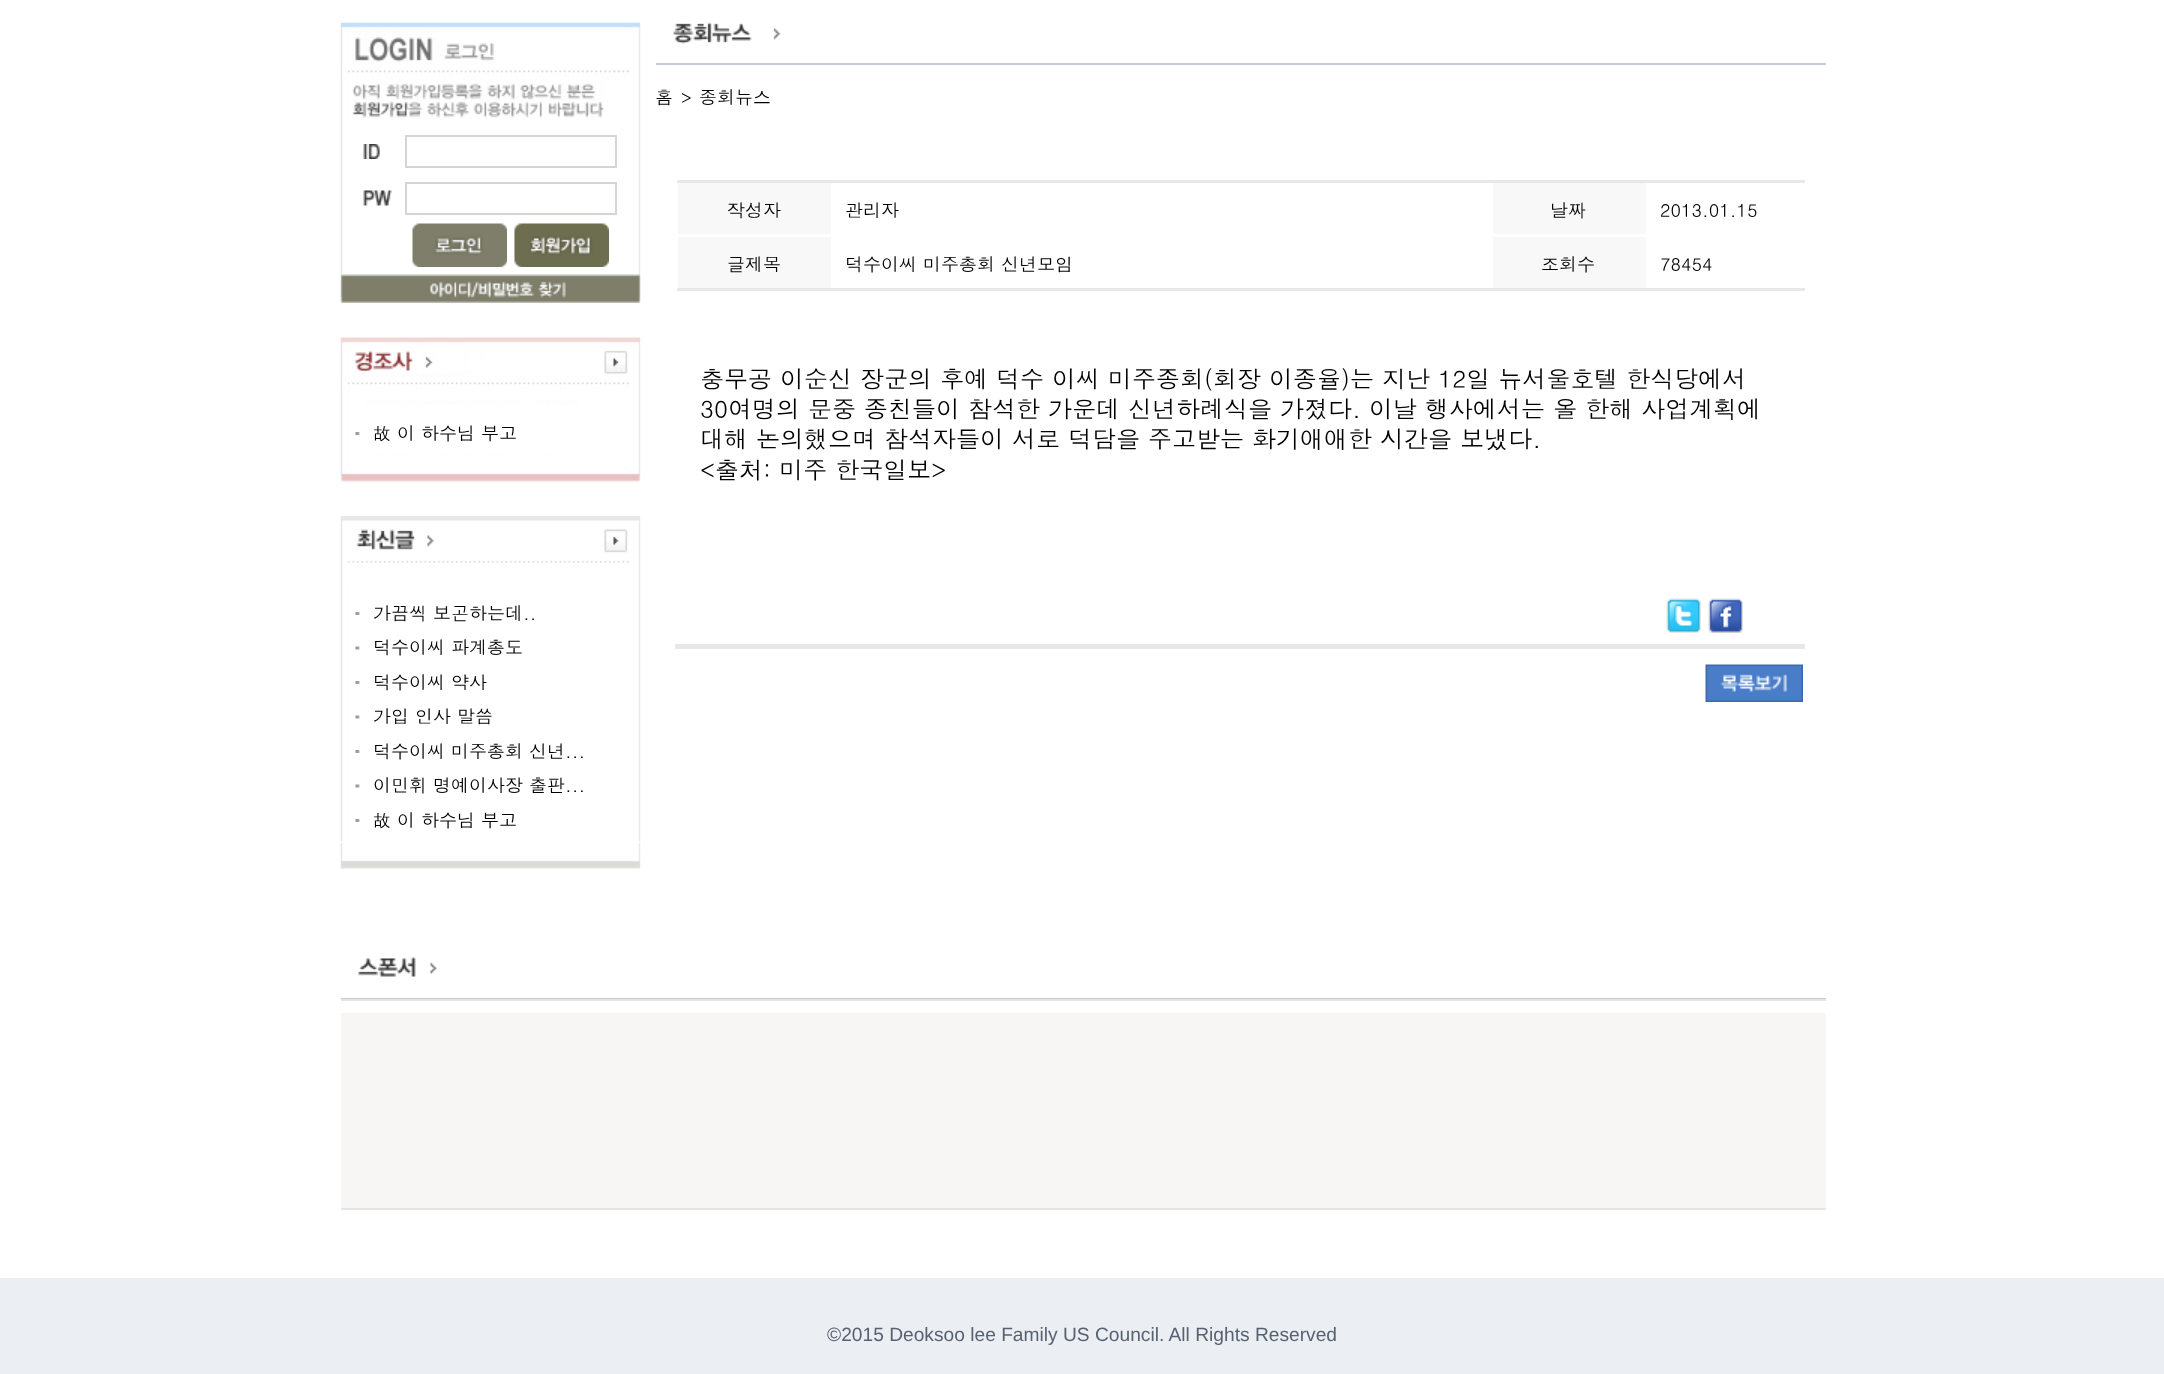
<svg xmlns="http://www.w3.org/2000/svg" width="2164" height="1374">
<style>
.a{font:18px Dotum;fill:#000}
.b{font:17px Dotum;fill:#000}
.c{font:24px Dotum;fill:#000}
.d{font:19.2px Liberation Sans;fill:#576271}
</style>
<rect width="100%" height="100%" fill="#fff"/>
<path fill="#c2ccd6" d="M656 63h1170v2H656z"/>
<image href="1.png" x="673" y="22" width="108" height="22"/>
<path fill="#e8e8e8" d="M677 180h1128v3H677z"/>
<path fill="#e8e8e8" d="M675 644h1130v5H675z"/>
<path fill="#f8f8f8" d="M678 183h153v51H678z"/>
<path fill="#f8f8f8" d="M1493 183h153v51H1493z"/>
<path fill="#f8f8f8" d="M678 237h153v51H678z"/>
<path fill="#f8f8f8" d="M1493 237h153v51H1493z"/>
<path fill="#e8e8e8" d="M677 288h1128v3H677z"/>
<image href="2.png" x="1666" y="598" width="35" height="35"/>
<image href="3.png" x="1708" y="598" width="35" height="35"/>
<image href="4.png" x="1705" y="664" width="98" height="38"/>
<image href="5.png" x="340" y="22" width="301" height="253"/>
<image href="6.png" x="363" y="144" width="17" height="15"/>
<path fill="none" stroke="#d5d5d5" stroke-width="2" d="M406 136h210v31H406z"/>
<image href="7.png" x="363" y="190" width="29" height="16"/>
<path fill="none" stroke="#d5d5d5" stroke-width="2" d="M406 183h210v31H406z"/>
<image href="8.png" x="412" y="223" width="95" height="44"/>
<image href="9.png" x="514" y="223" width="95" height="44"/>
<image href="10.png" x="340" y="274" width="301" height="29"/>
<image href="11.png" x="340" y="337" width="301" height="68"/>
<image href="12.png" x="340" y="405" width="301" height="50"/>
<image href="13.png" x="355" y="432" width="5" height="3"/>
<image href="14.png" x="340" y="454" width="301" height="28"/>
<image href="15.png" x="340" y="516" width="301" height="69"/>
<image href="16.png" x="340" y="585" width="301" height="257"/>
<image href="13.png" x="355" y="612" width="5" height="3"/>
<image href="17.png" x="355" y="646" width="5" height="4"/>
<image href="13.png" x="355" y="681" width="5" height="3"/>
<image href="17.png" x="355" y="715" width="5" height="4"/>
<image href="13.png" x="355" y="750" width="5" height="3"/>
<image href="17.png" x="355" y="784" width="5" height="4"/>
<image href="13.png" x="355" y="819" width="5" height="3"/>
<image href="18.png" x="340" y="843" width="301" height="26"/>
<path fill="#c2ccd6" d="M341 998h1485v1H341z"/>
<image href="19.png" x="358" y="957" width="79" height="20"/>
<path fill="#e6e5e3" d="M341 999h1485v2H341z"/>
<path fill="#e6e5e3" d="M341 1208h1485v2H341z"/>
<path fill="#f7f6f4" d="M341 1013h1485v195H341z"/>
<path fill="#ebeef3" d="M0 1278h2164v96H0z"/>
<text class="a" x="655" y="104">홈</text>
<text class="b" x="681" y="104">&gt;</text>
<text class="a" x="699" y="104">종회뉴스</text>
<text class="a" x="727" y="217">작성자</text>
<text class="a" x="845" y="217">관리자</text>
<text class="a" x="1550" y="217">날짜</text>
<text class="a" x="1660" y="217">2013.01.15</text>
<text class="a" x="727" y="271">글제목</text>
<text class="a" x="845" y="271">덕수이씨 미주총회 신년모임</text>
<text class="a" x="1541" y="271">조회수</text>
<text class="a" x="1660" y="271">78454</text>
<text class="c" x="700" y="388">충무공 이순신 장군의 후예 덕수 이씨 미주종회(회장 이종율)는 지난 12일 뉴서울호텔 한식당에서</text>
<text class="c" x="700" y="418">30여명의 문중 종친들이 참석한 가운데 신년하례식을 가졌다. 이날 행사에서는 올 한해 사업계획에</text>
<text class="c" x="700" y="448">대해 논의했으며 참석자들이 서로 덕담을 주고받는 화기애애한 시간을 보냈다.</text>
<text class="c" x="700" y="479">&lt;출처: 미주 한국일보&gt;</text>
<text class="a" x="373" y="440">故 이 하수님 부고</text>
<text class="a" x="373" y="620">가끔씩 보곤하는데..</text>
<text class="a" x="373" y="654">덕수이씨 파계총도</text>
<text class="a" x="373" y="689">덕수이씨 약사</text>
<text class="a" x="373" y="723">가입 인사 말씀</text>
<text class="a" x="373" y="758">덕수이씨 미주총회 신년...</text>
<text class="a" x="373" y="792">이민휘 명예이사장 출판...</text>
<text class="a" x="373" y="827">故 이 하수님 부고</text>
<text class="d" x="827" y="1341">©2015 Deoksoo lee Family US Council. All Rights Reserved</text>
</svg>
